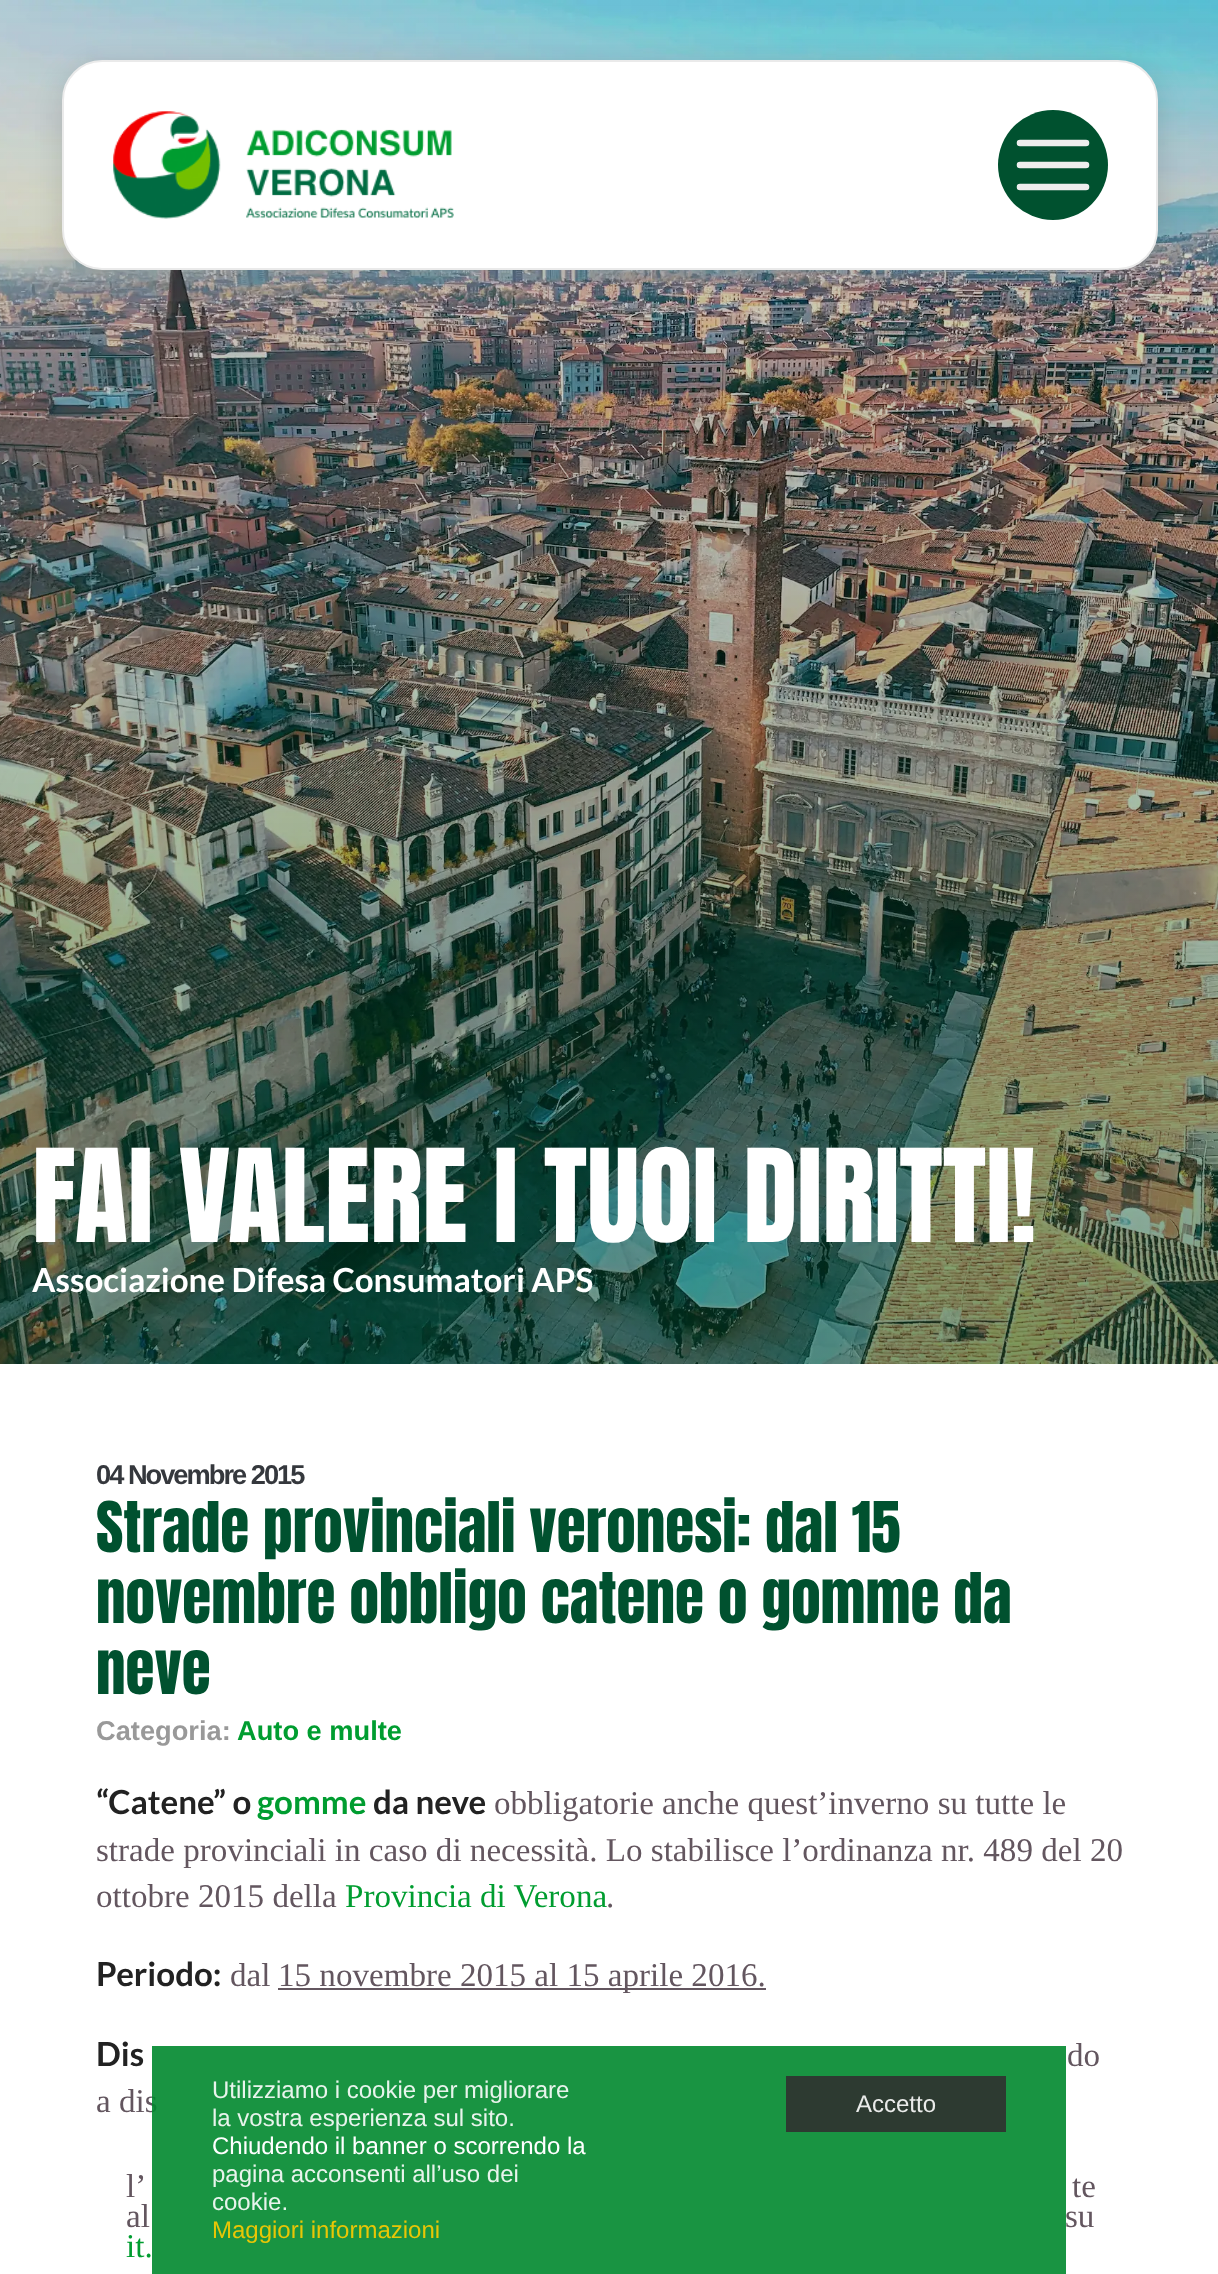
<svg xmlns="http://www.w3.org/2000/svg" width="1218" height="2274">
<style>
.a{font:109.75px Anton;fill:#fff}
.b{font:bold 33.1px Lato;fill:#fff}
.c{font:bold 27.25px Liberation Sans;letter-spacing:-2px;fill:#35383d}
.d{font:59.3px Anton;fill:#00512f}
.e{font:bold 27.25px Liberation Sans;fill:#999}
.f{font:bold 27.25px Liberation Sans;fill:#009d30}
.g{font:bold 33.1px Lato;fill:#222}
.h{font:bold 33.1px Lato;fill:#009d30}
.i{font:33.1px Liberation Serif;fill:#63565f}
.j{font:33.1px Liberation Serif;fill:#009d30}
.k{font:24px Liberation Sans;fill:#e8f4ec}
.l{font:24px Liberation Sans;fill:#fff}
.m{font:24px Liberation Sans;fill:#e8c606}
.n{font:24px Liberation Sans;fill:#eaebea}
</style>
<rect width="100%" height="100%" fill="#fff"/>
<image href="2.png" x="0" y="0" width="1218" height="1364"/>
<image href="3.png" x="0" y="0" width="1218" height="1364"/>
<rect fill="#0000001f" filter="blur(14px)" x="62" y="66" width="1096" height="210" rx="40"/>
<rect fill="#fff" stroke="#eaeaea" stroke-width="2" x="63" y="61" width="1094" height="208" rx="39"/>
<image href="1.png" x="113" y="111" width="341" height="108"/>
<circle fill="#00512f" cx="1053" cy="165" r="55"/>
<path fill="none" stroke="#eee" stroke-width="6.6" stroke-linecap="round" d="M1020 143h66m-66 22h66m-66 22h66"/>
<path fill="#63565f" d="M278 1988h488v2H278z"/>
<text class="a" x="32" y="1242">FAI VALERE I TUOI DIRITTI!</text>
<text class="b" x="32" y="1292">Associazione Difesa Consumatori APS</text>
<text class="c" x="96" y="1484">04 Novembre 2015</text>
<text class="d" x="96" y="1552">Strade provinciali veronesi: dal 15</text>
<text class="d" x="96" y="1623">novembre obbligo catene o gomme da</text>
<text class="d" x="96" y="1694">neve</text>
<text class="e" x="96" y="1740">Categoria:</text>
<text class="f" x="237" y="1740">Auto e multe</text>
<text class="g" x="96" y="1814">“Catene” o</text>
<text class="h" x="257" y="1814">gomme</text>
<text class="g" x="373" y="1814">da neve</text>
<text class="i" x="494" y="1814">obbligatorie anche quest’inverno su tutte le</text>
<text class="i" x="96" y="1861">strade provinciali in caso di necessità. Lo stabilisce l’ordinanza nr. 489 del 20</text>
<text class="i" x="96" y="1907">ottobre 2015 della</text>
<text class="j" x="345" y="1907">Provincia di Verona</text>
<text class="i" x="606" y="1907">.</text>
<text class="g" x="96" y="1986">Periodo:</text>
<text class="i" x="230" y="1986">dal</text>
<text class="i" x="278" y="1986">15 novembre 2015 al 15 aprile 2016.</text>
<text class="g" x="96" y="2066">Dis</text>
<text class="i" x="1067" y="2066">do</text>
<text class="i" x="96" y="2112">a dis</text>
<text class="i" x="126" y="2197">l’</text>
<text class="i" x="1072" y="2197">te</text>
<text class="i" x="126" y="2227">al</text>
<text class="i" x="1065" y="2227">su</text>
<text class="j" x="126" y="2257">it.</text>
<path fill="#00882ee6" d="M152 2046h914v228H152z"/>
<text class="k" x="212" y="2098">Utilizziamo i cookie per migliorare</text>
<text class="k" x="212" y="2126">la vostra esperienza sul sito.</text>
<text class="l" x="212" y="2154">Chiudendo il banner o scorrendo la</text>
<text class="k" x="212" y="2182">pagina acconsenti all’uso dei</text>
<text class="k" x="212" y="2210">cookie.</text>
<text class="m" x="212" y="2238">Maggiori informazioni</text>
<path fill="#303030e6" d="M786 2076h220v56H786z"/>
<text class="n" x="856" y="2112">Accetto</text>
</svg>
